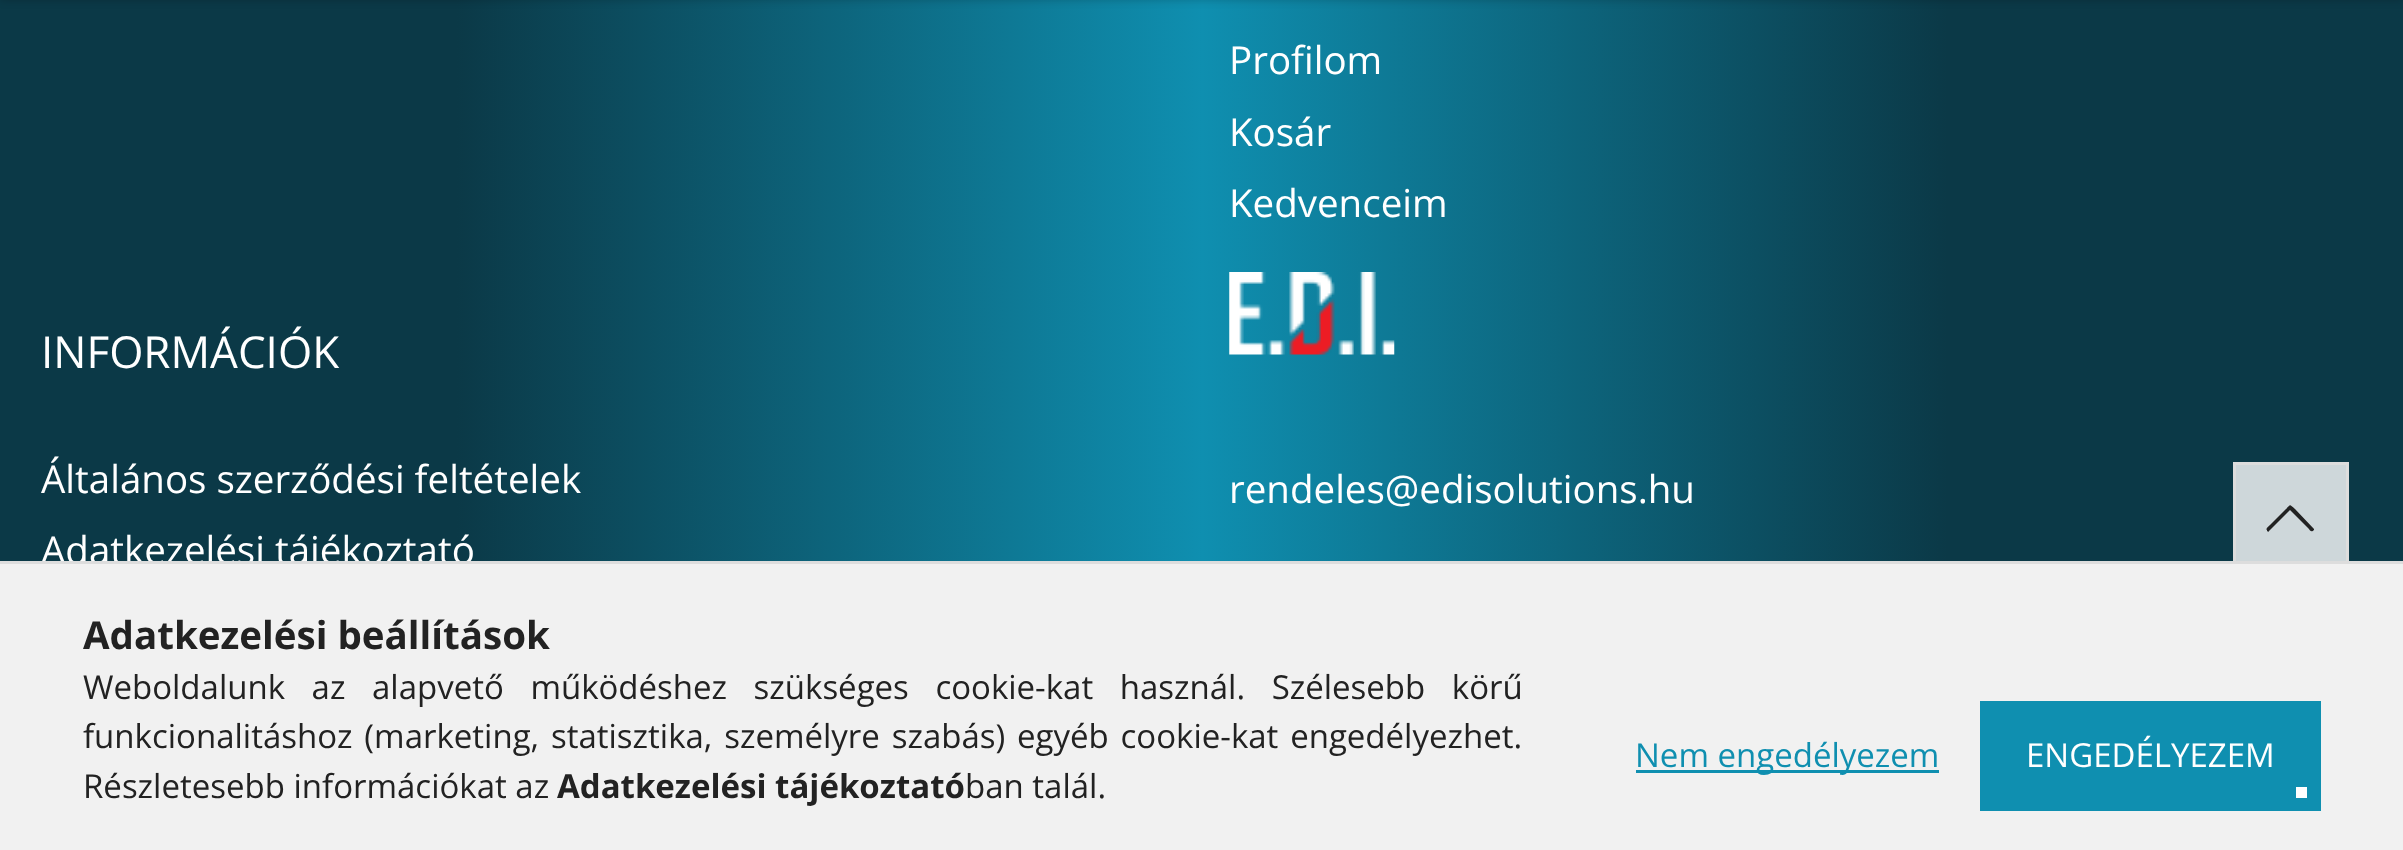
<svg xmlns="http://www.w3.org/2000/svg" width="2403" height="850">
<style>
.a{font:38.5px Open Sans;fill:#fff}
.b{font:44px Open Sans;fill:#fff}
.c{font:bold 38.5px Open Sans;fill:#222}
.d{font:33px Open Sans;fill:#222}
.e{font:bold 33px Open Sans;fill:#222}
.f{font:33px Open Sans;fill:#0f8fb0}
.g{font:33px Open Sans;fill:#fff}
</style>
<defs>
<linearGradient id="g1" gradientUnits="userSpaceOnUse" x1="0" y1="481" x2="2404" y2="481"><stop offset="0.19" stop-color="#0b3947"/><stop offset="0.5" stop-color="#0f8fb0"/><stop offset="0.81" stop-color="#0b3947"/></linearGradient>
</defs>
<rect width="100%" height="100%" fill="#fff"/>
<path fill="url(#g1)" d="M0 0h2403v561H0z"/>
<path fill="#00000033" filter="blur(4px)" d="M0 -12h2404v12H0z"/>
<image href="1.png" x="1229" y="272" width="166" height="83"/>
<path fill="#ced7da" d="M2236 465h110v96H2236z"/>
<path fill="none" stroke="#ddd" stroke-width="3" d="M2234.5 463.5h113v113H2234.5z"/>
<path fill="#222" d="M2267 530c-2-1 2-4 3-5l16-16c5-5 3-5 9 0l19 20v1c-3 3-4 0-6-2l-18-18l-21 21c0 1-1 1-2 0z"/>
<text class="a" x="1229" y="74">Profilom</text>
<text class="a" x="1229" y="146">Kosár</text>
<text class="a" x="1229" y="217">Kedvenceim</text>
<text class="b" x="41" y="368">INFORMÁCIÓK</text>
<text class="a" x="41" y="493">Általános szerződési feltételek</text>
<text class="a" x="41" y="564">Adatkezelési tájékoztató</text>
<text class="a" x="1229" y="503">rendeles@edisolutions.hu</text>
<path fill="#f1f1f1" d="M0 564h2403v286H0z"/>
<path fill="#ddd" d="M0 561h2403v3H0z"/>
<text class="c" x="83" y="649">Adatkezelési beállítások</text>
<text class="d" x="83" y="699" word-spacing="18">Weboldalunk az alapvető működéshez szükséges cookie-kat használ. Szélesebb körű</text>
<text class="d" x="83" y="748" word-spacing="3.25">funkcionalitáshoz (marketing, statisztika, személyre szabás) egyéb cookie-kat engedélyezhet.</text>
<text class="d" x="83" y="798">Részletesebb információkat az</text>
<text class="e" x="557" y="798">Adatkezelési tájékoztató</text>
<text class="d" x="965" y="798">ban talál.</text>
<path fill="#0f8fb0" d="M1636 770h303v3H1636z"/>
<text class="f" x="1635" y="767">Nem engedélyezem</text>
<path fill="#0f8fb0" d="M1980 701h341v110H1980z"/>
<text class="g" x="2026" y="767">ENGEDÉLYEZEM</text>
<path fill="#fff" d="M2296 787h11v11H2296z"/>
</svg>
